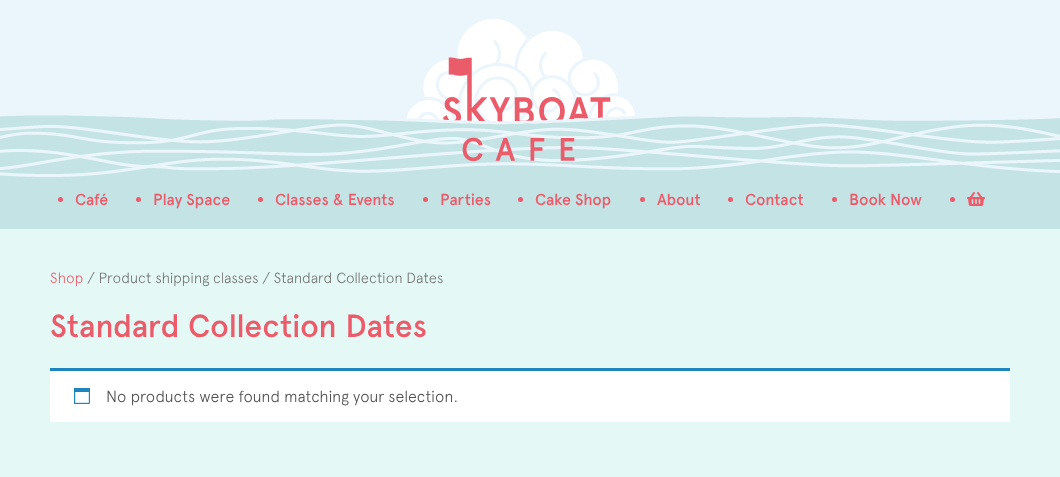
<svg xmlns="http://www.w3.org/2000/svg" width="1060" height="477">
<style>
.a{font:500 16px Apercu;fill:#eb5c6b}
.b{font:300 14.75px Apercu;fill:#eb5c6b}
.c{font:300 14.75px Apercu;fill:#767676}
.d{font:500 32px Apercu;fill:#eb5c6b}
.e{font:300 16px Apercu;fill:#515151}
</style>
<rect width="100%" height="100%" fill="#e4f9f6"/>
<path fill="#c4e3e5" d="M0 193h1060v36H0z"/>
<image href="1.png" x="0" y="0" width="1060" height="193"/>
<circle fill="#eb5c6b" cx="60.5" cy="199.5" r="2.5"/>
<circle fill="#eb5c6b" cx="138.5" cy="199.5" r="2.5"/>
<circle fill="#eb5c6b" cx="260.5" cy="199.5" r="2.5"/>
<circle fill="#eb5c6b" cx="425.5" cy="199.5" r="2.5"/>
<circle fill="#eb5c6b" cx="520.5" cy="199.5" r="2.5"/>
<circle fill="#eb5c6b" cx="642.5" cy="199.5" r="2.5"/>
<circle fill="#eb5c6b" cx="730.5" cy="199.5" r="2.5"/>
<circle fill="#eb5c6b" cx="834.5" cy="199.5" r="2.5"/>
<circle fill="#eb5c6b" cx="952.5" cy="199.5" r="2.5"/>
<image href="2.png" x="967" y="192" width="18" height="14"/>
<path fill="#fff" d="M50 371h960v51H50z"/>
<path fill="#1e85be" d="M50 368h960v3H50z"/>
<image href="3.png" x="74" y="388" width="16" height="16"/>
<text class="a" x="75" y="205">Café</text>
<text class="a" x="153" y="205">Play Space</text>
<text class="a" x="275" y="205">Classes &amp; Events</text>
<text class="a" x="440" y="205">Parties</text>
<text class="a" x="535" y="205">Cake Shop</text>
<text class="a" x="657" y="205">About</text>
<text class="a" x="745" y="205">Contact</text>
<text class="a" x="849" y="205">Book Now</text>
<text class="b" x="50" y="283">Shop</text>
<text class="c" x="87" y="283">/ Product shipping classes / Standard Collection Dates</text>
<text class="d" x="50" y="337">Standard Collection Dates</text>
<text class="e" x="106" y="402">No products were found matching your selection.</text>
</svg>
